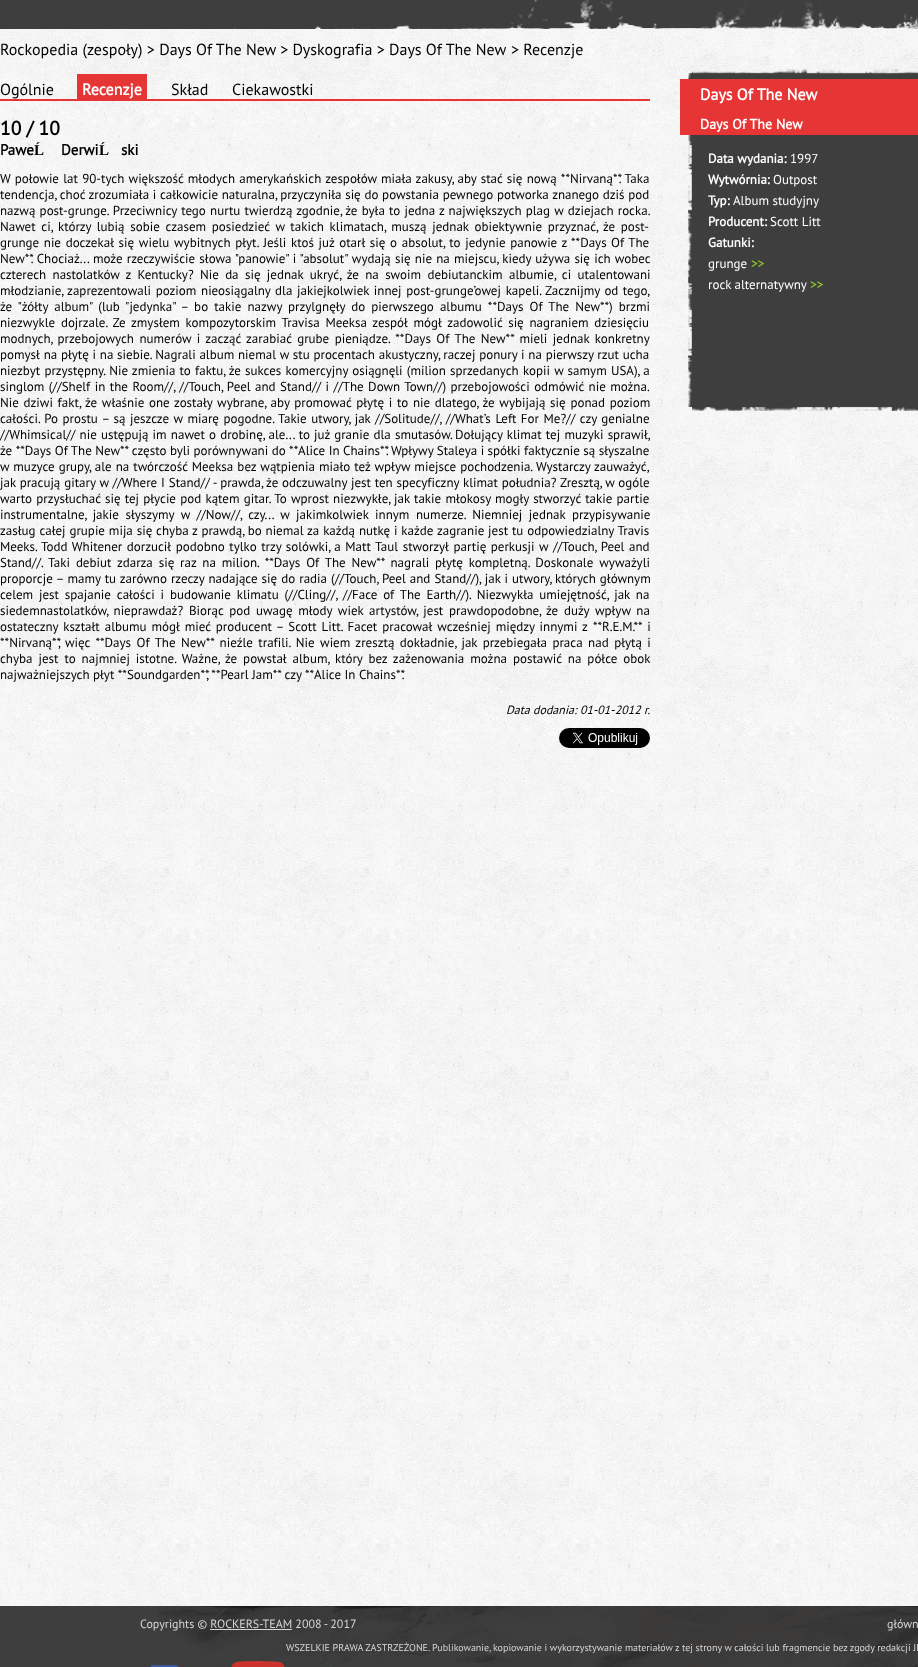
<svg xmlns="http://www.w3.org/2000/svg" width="918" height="1667">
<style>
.a{font:16px PT Sans;fill:#000}
.b{font:bold 16px PT Sans;fill:#fff}
.c{font:bold 19.5px PT Sans;fill:#000}
.d{font:bold 15px PT Sans;fill:#000}
.e{font:bold 15px Liberation Serif;fill:#000}
.f{font:13px PT Sans;fill:#000}
.g{font:italic 12px PT Sans;fill:#000}
.h{font:bold 14px PT Sans;fill:#fff}
.i{font:bold 13px PT Sans;fill:#fff}
.j{font:13px PT Sans;fill:#fff}
.k{font:bold 13px PT Sans;fill:#89c42d}
.l{font:12px PT Sans;fill:#d6d6d6}
.m{font:10px PT Sans;fill:#d6d6d6}
</style>
<rect width="100%" height="100%" fill="#fff"/>
<image href="1.png" x="0" y="0" width="918" height="1606"/>
<image href="2.png" x="0" y="0" width="918" height="29"/>
<path fill="#e63535" d="M0 99h650v2H0z"/>
<path fill="#e63535" d="M77 74h70v25H77z"/>
<image href="3.png" x="559" y="728" width="91" height="20"/>
<image href="5.png" x="688" y="69" width="230" height="342"/>
<image href="4.png" x="680" y="79" width="238" height="56"/>
<path fill="#3f3e3e" d="M0 1606h918v61H0z"/>
<image href="6.png" x="158" y="1606" width="760" height="61"/>
<path fill="#d6d6d6" d="M210 1629h82v1H210z"/>
<image href="7.png" x="150" y="1665" width="29" height="2"/>
<image href="8.png" x="231" y="1661" width="54" height="6"/>
<image href="9.png" x="329" y="1666" width="3" height="1"/>
<text class="a" x="0" y="55">Rockopedia (zespoły) &gt; Days Of The New &gt; Dyskografia &gt;</text>
<text class="a" x="389" y="55">Days Of The New</text>
<text class="a" x="511" y="55">&gt; Recenzje</text>
<text class="a" x="0" y="95">Ogólnie</text>
<text class="b" x="82" y="95">Recenzje</text>
<text class="a" x="171" y="95">Skład</text>
<text class="a" x="232" y="95">Ciekawostki</text>
<text class="c" x="0" y="135">10 / 10</text>
<text class="d" x="0" y="155">Pawe</text>
<text class="e" x="34" y="155">Ĺ</text>
<text class="d" x="61" y="155">Derwi</text>
<text class="e" x="99" y="155">Ĺ</text>
<text class="d" x="121" y="155">ski</text>
<text class="f" x="0" y="183" word-spacing="0.8">W połowie lat 90-tych większość młodych amerykańskich zespołów miała zakusy, aby stać się nową **Nirvaną**. Taka</text>
<text class="f" x="0" y="199" word-spacing="0.25">tendencja, choć zrozumiała i całkowicie naturalna, przyczyniła się do powstania pewnego potworka znanego dziś pod</text>
<text class="f" x="0" y="215" word-spacing="0.75">nazwą post-grunge. Przeciwnicy tego nurtu twierdzą zgodnie, że była to jedna z największych plag w dziejach rocka.</text>
<text class="f" x="0" y="231" word-spacing="2.25">Nawet ci, którzy lubią sobie czasem posiedzieć w takich klimatach, muszą jednak obiektywnie przyznać, że post-</text>
<text class="f" x="0" y="247" word-spacing="1.2">grunge nie doczekał się wielu wybitnych płyt. Jeśli ktoś już otarł się o absolut, to jedynie panowie z</text>
<text class="f" x="571" y="247" word-spacing="1">**Days Of The</text>
<text class="f" x="0" y="263" word-spacing="0.75">New**. Chociaż... może rzeczywiście słowa "panowie" i "absolut" wydają się nie na miejscu, kiedy używa się ich wobec</text>
<text class="f" x="0" y="279" word-spacing="2.9">czterech nastolatków z Kentucky? Nie da się jednak ukryć, że na swoim debiutanckim albumie, ci utalentowani</text>
<text class="f" x="0" y="295" word-spacing="1.25">młodzianie, zaprezentowali poziom nieosiągalny dla jakiejkolwiek innej post-grunge’owej kapeli.</text>
<text class="f" x="545" y="295" word-spacing="1">Zacznijmy od tego,</text>
<text class="f" x="0" y="311" word-spacing="2.6">że "żółty album" (lub "jedynka" – bo takie nazwy przylgnęły do pierwszego albumu **Days Of The New**) brzmi</text>
<text class="f" x="0" y="327" word-spacing="2.25">niezwykle dojrzale. Ze zmysłem kompozytorskim Travisa Meeksa zespół mógł zadowolić się nagraniem dziesięciu</text>
<text class="f" x="0" y="343" word-spacing="2">modnych, przebojowych numerów i zacząć zarabiać grube pieniądze. **Days Of The New** mieli jednak konkretny</text>
<text class="f" x="0" y="359" word-spacing="0.3">pomysł na płytę i na siebie. Nagrali album niemal w stu procentach akustyczny, raczej ponury i na pierwszy rzut ucha</text>
<text class="f" x="0" y="375" word-spacing="0.75">niezbyt przystępny. Nie zmienia to faktu, że sukces komercyjny osiągnęli (milion sprzedanych kopii w samym USA), a</text>
<text class="f" x="0" y="391" word-spacing="1">singlom (//Shelf in the Room//, //Touch, Peel and Stand// i //The Down Town//) przebojowości odmówić nie można.</text>
<text class="f" x="0" y="407" word-spacing="1.25">Nie dziwi fakt, że właśnie one zostały wybrane, aby promować płytę i to nie dlatego, że wybijają się ponad poziom</text>
<text class="f" x="0" y="423" word-spacing="1.1">całości. Po prostu – są jeszcze w miarę pogodne. Takie utwory, jak //Solitude//, //What’s Left For Me?// czy genialne</text>
<text class="f" x="0" y="439" word-spacing="0.75">//Whimsical// nie ustępują im nawet o drobinę, ale... to już granie dla smutasów.</text>
<text class="f" x="455" y="439" word-spacing="0.75">Dołujący klimat tej muzyki sprawił,</text>
<text class="f" x="0" y="455">że **Days Of The New** często byli porównywani do **Alice In Chains**. Wpływy Staleya i spółki faktycznie są słyszalne</text>
<text class="f" x="0" y="471" word-spacing="0.6">w muzyce grupy, ale na twórczość Meeksa bez wątpienia miało też wpływ miejsce pochodzenia. Wystarczy zauważyć,</text>
<text class="f" x="0" y="487" word-spacing="0.4">jak pracują gitary w //Where I Stand// - prawda, że odczuwalny jest ten specyficzny klimat południa? Zresztą, w ogóle</text>
<text class="f" x="0" y="503" word-spacing="0.75">warto przysłuchać się tej płycie pod kątem gitar. To wprost niezwykłe, jak takie młokosy mogły stworzyć takie partie</text>
<text class="f" x="0" y="519" word-spacing="3.1">instrumentalne, jakie słyszymy w //Now//, czy... w jakimkolwiek innym numerze. Niemniej jednak przypisywanie</text>
<text class="f" x="0" y="535" word-spacing="0.4">zasług całej grupie mija się chyba z prawdą, bo niemal za każdą nutkę i każde zagranie jest tu odpowiedzialny Travis</text>
<text class="f" x="0" y="551" word-spacing="1.1">Meeks. Todd Whitener dorzucił podobno tylko trzy solówki, a Matt Taul stworzył partię perkusji w //Touch, Peel and</text>
<text class="f" x="0" y="567">Stand//.</text>
<text class="f" x="48" y="567" word-spacing="2.4">Taki debiut zdarza się raz na milion. **Days Of The New** nagrali płytę kompletną. Doskonale wyważyli</text>
<text class="f" x="0" y="583" word-spacing="0.6">proporcje – mamy tu zarówno rzeczy nadające się do radia (//Touch, Peel and Stand//), jak i utwory, których głównym</text>
<text class="f" x="0" y="599" word-spacing="2.4">celem jest spajanie całości i budowanie klimatu (//Cling//, //Face of The Earth//). Niezwykła umiejętność, jak na</text>
<text class="f" x="0" y="615" word-spacing="2.25">siedemnastolatków, nieprawdaż?</text>
<text class="f" x="189" y="615" word-spacing="2.25">Biorąc pod uwagę młody wiek artystów, jest prawdopodobne, że duży wpływ na</text>
<text class="f" x="0" y="631" word-spacing="1.5">ostateczny kształt albumu mógł mieć producent – Scott Litt. Facet pracował wcześniej między innymi</text>
<text class="f" x="582" y="631" word-spacing="2">z **R.E.M.** i</text>
<text class="f" x="0" y="647" word-spacing="2">**Nirvaną**, więc **Days Of The New** nieźle trafili. Nie wiem zresztą dokładnie, jak przebiegała praca nad płytą i</text>
<text class="f" x="0" y="663" word-spacing="2.5">chyba jest to najmniej istotne. Ważne, że powstał album, który bez zażenowania można postawić na półce obok</text>
<text class="f" x="0" y="679">najważniejszych płyt **Soundgarden**, **Pearl Jam** czy **Alice In Chains**.</text>
<text class="g" x="506" y="714">Data dodania: 01-01-2012 r.</text>
<text class="b" x="700" y="100">Days Of The New</text>
<text class="h" x="700" y="129">Days Of The New</text>
<text class="i" x="708" y="163">Data wydania:</text>
<text class="j" x="790" y="163">1997</text>
<text class="i" x="708" y="184">Wytwórnia:</text>
<text class="j" x="773" y="184">Outpost</text>
<text class="i" x="708" y="205">Typ:</text>
<text class="j" x="733" y="205">Album studyjny</text>
<text class="i" x="708" y="226">Producent:</text>
<text class="j" x="770" y="226">Scott Litt</text>
<text class="i" x="708" y="247">Gatunki:</text>
<text class="j" x="708" y="268">grunge</text>
<text class="k" x="751" y="268">&gt;&gt;</text>
<text class="j" x="708" y="289">rock alternatywny</text>
<text class="k" x="810" y="289">&gt;&gt;</text>
<text class="l" x="140" y="1628">Copyrights © ROCKERS-TEAM 2008 - 2017</text>
<text class="l" x="887" y="1628">główn</text>
<text class="m" x="286" y="1651">WSZELKIE PRAWA ZASTRZEŻONE. Publikowanie, kopiowanie i wykorzystywanie materiałów z tej strony w całości lub fragmencie bez zgody redakcji JE</text>
</svg>
